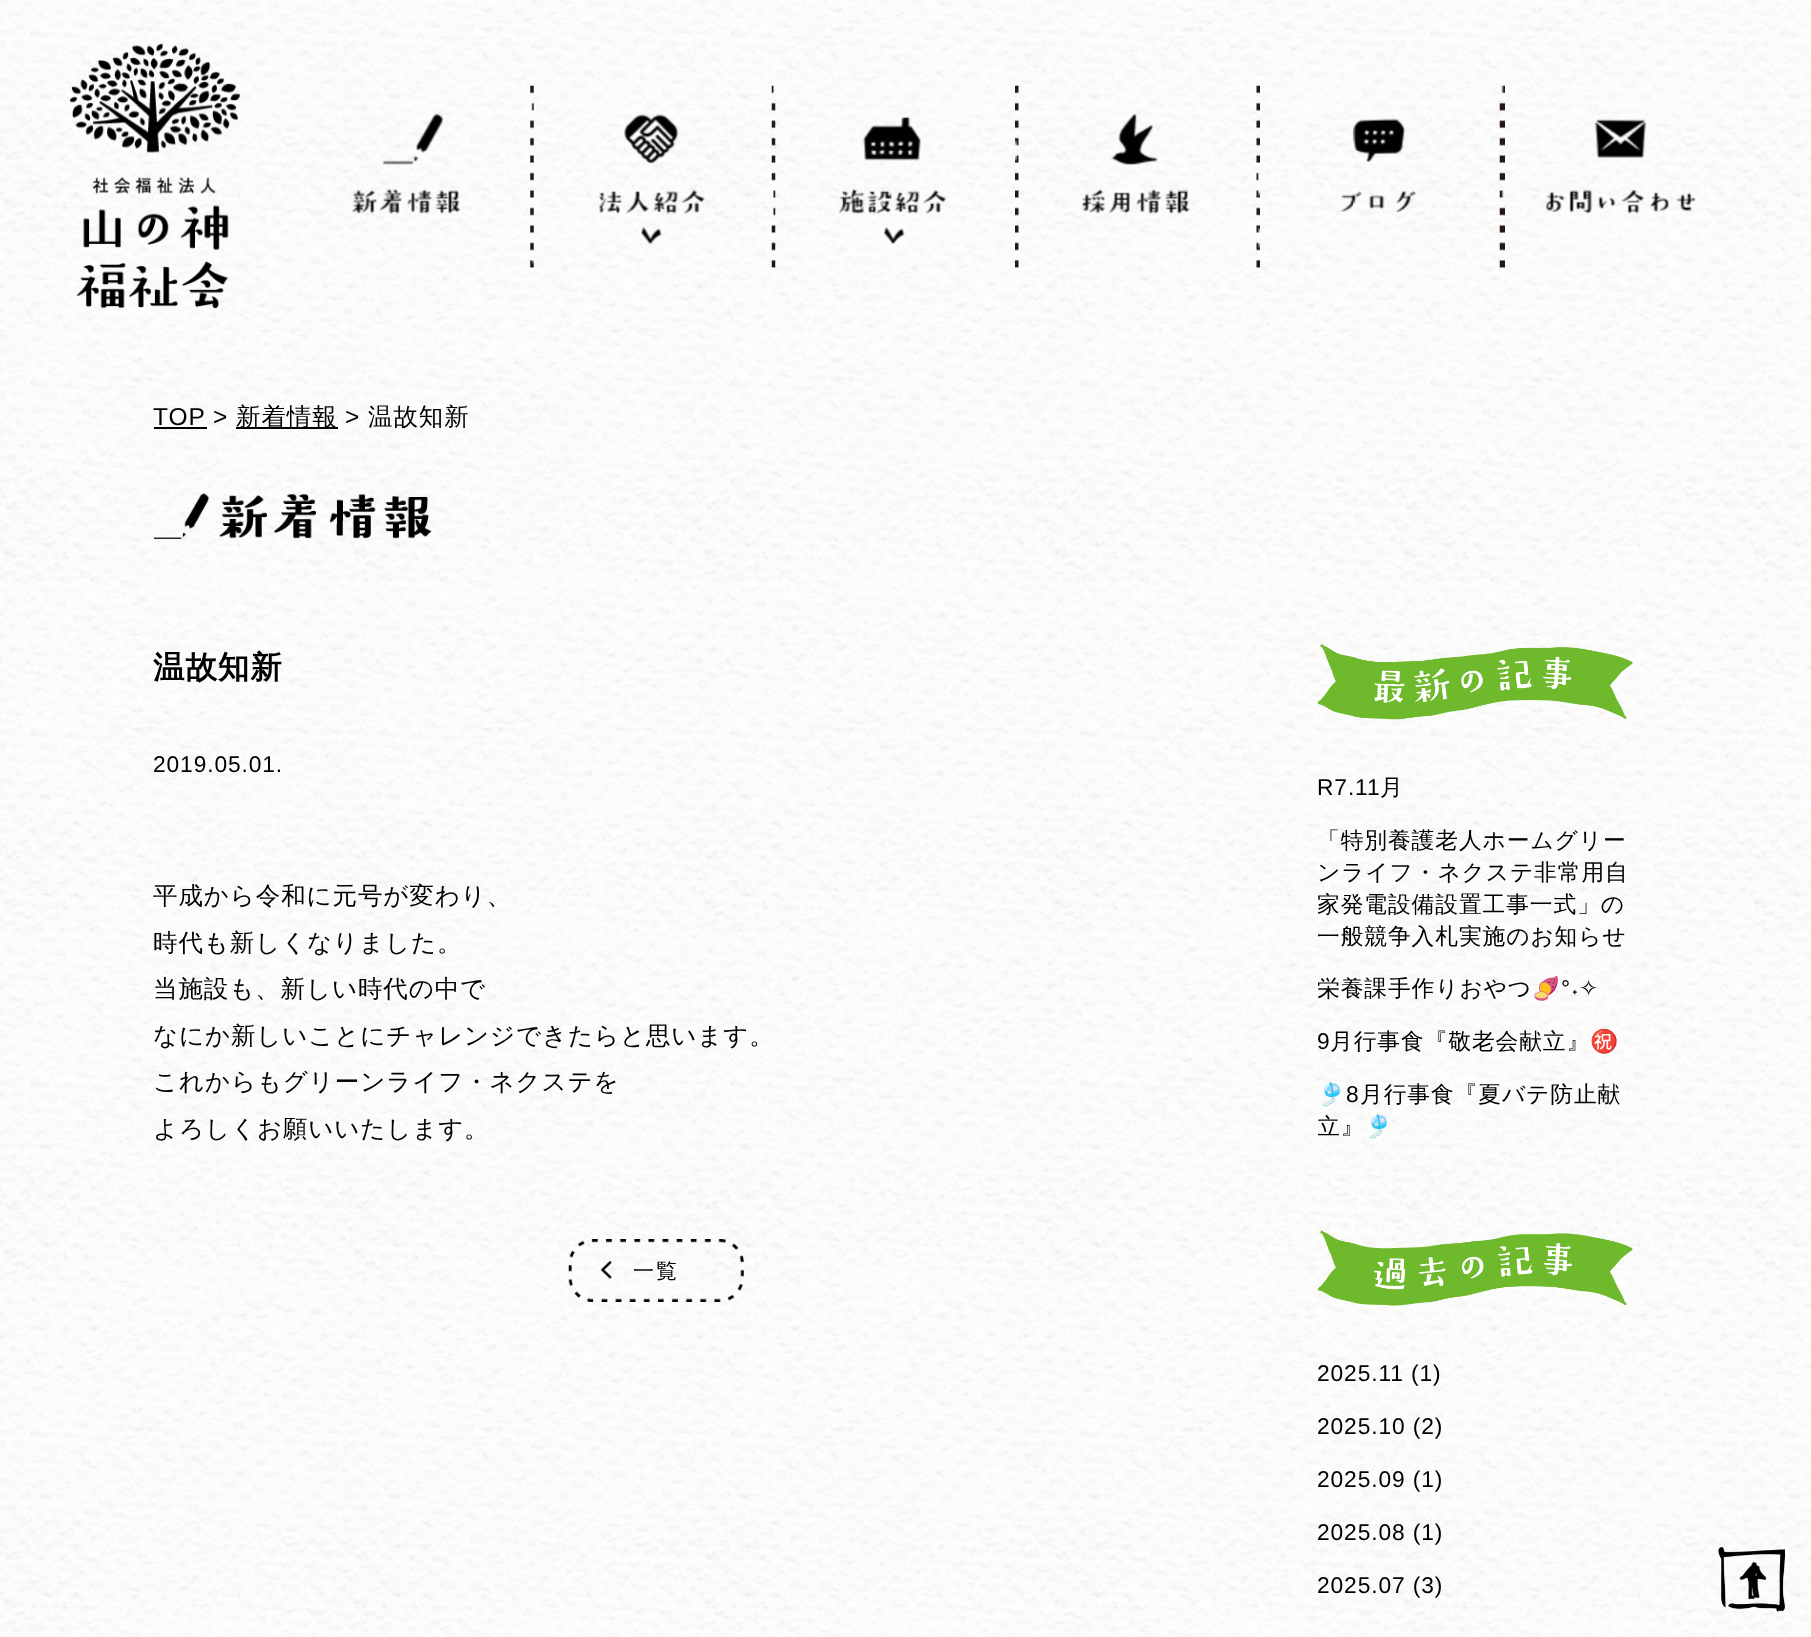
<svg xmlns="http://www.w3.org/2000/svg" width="1811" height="1637">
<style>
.a{font:24.5px Liberation Sans;letter-spacing:0.9px;fill:#000}
.b{font:500 24.5px WenQuanYi Zen Hei;letter-spacing:0.9px;fill:#000}
.c{font:bold 31.5px WenQuanYi Zen Hei;letter-spacing:0.9px;fill:#000}
.d{font:22.75px Liberation Sans;letter-spacing:0.9px;fill:#000}
.e{font:500 21px WenQuanYi Zen Hei;letter-spacing:2px;fill:#000}
.f{font:500 22.75px WenQuanYi Zen Hei;letter-spacing:0.9px;fill:#000}
.g{font:22.75px Noto Color Emoji;letter-spacing:0.9px;fill:#000}
.h{font:22.75px DejaVu Sans;letter-spacing:0.9px;fill:#000}
</style>
<defs>
<clipPath id="clip1"><path d="M1318 592h315v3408H1318z"/></clipPath>
</defs>
<rect width="100%" height="100%" fill="#fff"/>
<image href="1.png" x="0" y="0" width="1811" height="1637"/>
<image href="2.png" x="70" y="43" width="170" height="266"/>
<image href="3.png" x="351" y="114" width="110" height="100"/>
<image href="4.png" x="530" y="85" width="4" height="183"/>
<image href="5.png" x="599" y="114" width="106" height="130"/>
<image href="6.png" x="771" y="85" width="5" height="183"/>
<image href="7.png" x="838" y="116" width="108" height="128"/>
<image href="8.png" x="1015" y="85" width="4" height="183"/>
<image href="9.png" x="1082" y="114" width="108" height="100"/>
<image href="10.png" x="1256" y="85" width="4" height="183"/>
<image href="11.png" x="1341" y="118" width="76" height="95"/>
<image href="12.png" x="1499" y="85" width="6" height="183"/>
<image href="13.png" x="1545" y="119" width="151" height="95"/>
<path fill="#000" d="M154 427h53v2H154z"/>
<path fill="#000" d="M236 427h102v2H236z"/>
<image href="14.png" x="154" y="493" width="278" height="46"/>
<image href="15.png" x="568" y="1239" width="176" height="63"/>
<image href="16.png" x="1317" y="644" width="316" height="76"/>
<image href="17.png" x="1317" y="1230" width="316" height="76"/>
<image href="18.png" x="1718" y="1547" width="67" height="65"/>
<text class="a" x="153" y="425">TOP &gt;</text>
<text class="b" x="236" y="425">新着情報</text>
<text class="a" x="345" y="425">&gt;</text>
<text class="b" x="368" y="425">温故知新</text>
<text class="c" x="153" y="678">温故知新</text>
<text class="d" x="153" y="772">2019.05.01.</text>
<text class="b" x="153" y="904">平成から令和に元号が変わり、</text>
<text class="b" x="153" y="951">時代も新しくなりました。</text>
<text class="b" x="153" y="997">当施設も、新しい時代の中で</text>
<text class="b" x="153" y="1044">なにか新しいことにチャレンジできたらと思います。</text>
<text class="b" x="153" y="1090">これからもグリーンライフ・ネクステを</text>
<text class="b" x="153" y="1137">よろしくお願いいたします。</text>
<text class="e" x="633" y="1278">一覧</text>
<text class="d" x="1317" y="795">R7.11</text>
<text class="f" x="1380" y="795">月</text>
<text class="f" x="1317" y="848">「特別養護老人ホームグリー</text>
<text class="f" x="1317" y="880">ンライフ・ネクステ非常用自</text>
<text class="f" x="1317" y="912">家発電設備設置工事一式」の</text>
<text class="f" x="1317" y="944">一般競争入札実施のお知らせ</text>
<g clip-path="url(#clip1)">
<text class="f" x="1317" y="996">栄養課手作りおやつ</text>
</g>
<text class="g" x="1532" y="996">🍠</text>
<text class="d" x="1561" y="996">°˖</text>
<text class="h" x="1579" y="996">✧</text>
<text class="d" x="1317" y="1049">9</text>
<text class="f" x="1330" y="1049">月行事食『敬老会献立』</text>
<text class="g" x="1590" y="1049">㊗️</text>
<g clip-path="url(#clip1)">
<text class="g" x="1317" y="1102">🎐</text>
</g>
<text class="d" x="1346" y="1102">8</text>
<text class="f" x="1360" y="1102">月行事食『夏バテ防止献</text>
<g clip-path="url(#clip1)">
<text class="f" x="1317" y="1134">立』</text>
</g>
<text class="g" x="1364" y="1134">🎐</text>
<text class="d" x="1317" y="1381">2025.11 (1)</text>
<text class="d" x="1317" y="1434">2025.10 (2)</text>
<text class="d" x="1317" y="1487">2025.09 (1)</text>
<text class="d" x="1317" y="1540">2025.08 (1)</text>
<text class="d" x="1317" y="1593">2025.07 (3)</text>
</svg>
